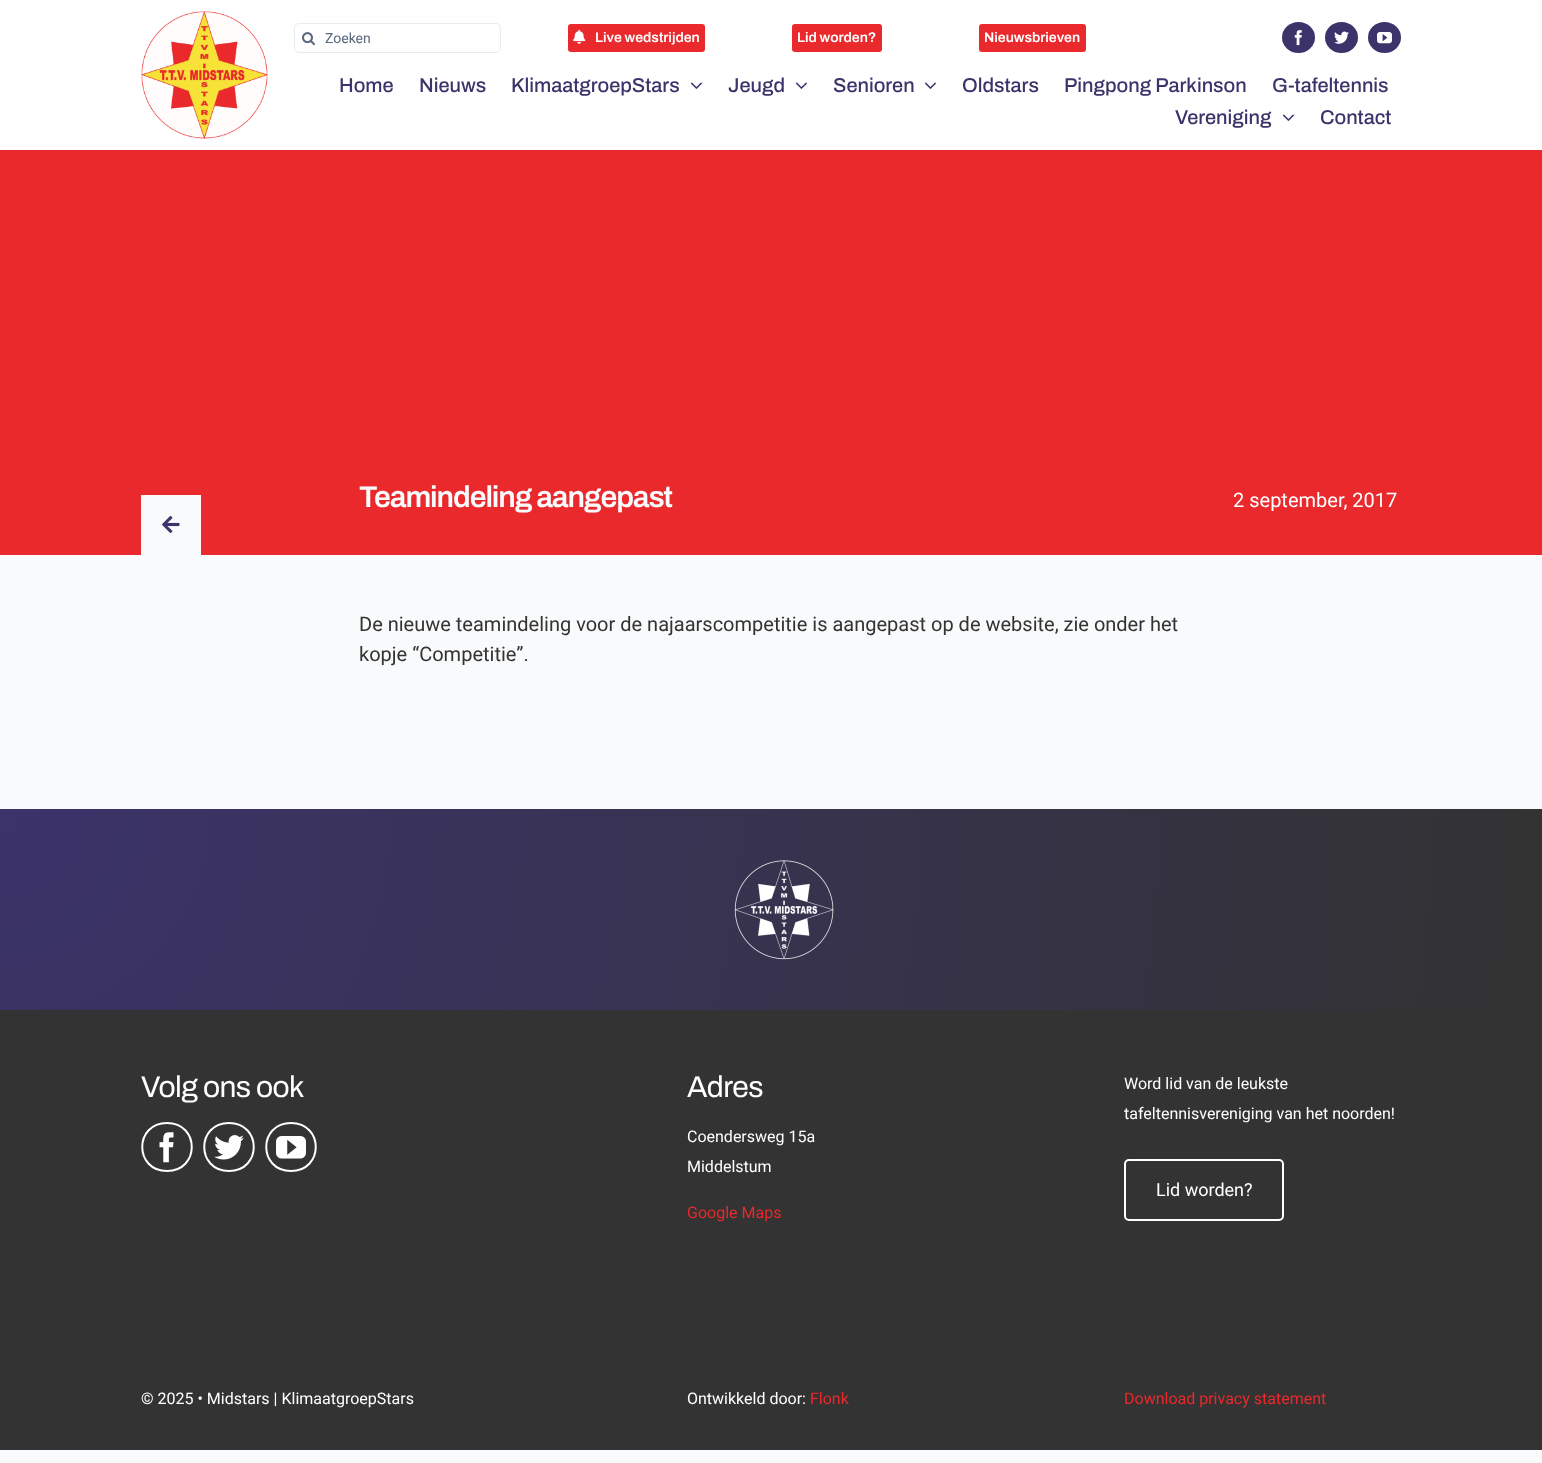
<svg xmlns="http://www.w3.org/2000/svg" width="1542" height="1463">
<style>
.a{font:14px Roboto;fill:#59667d}
.b{font:600 14px Archivo;fill:#fff}
.c{font:500 20px Archivo;fill:#3b336a}
.d{font:600 30px Archivo;letter-spacing:-1.1px;fill:#f9fafb}
.e{font:20px Roboto;fill:#fff}
.f{font:20px Roboto;fill:#333}
.g{font:30px Archivo;letter-spacing:-0.6px;fill:#fff}
.h{font:16px Roboto;fill:#fff}
.i{font:16px Roboto;fill:#e9292c}
.j{font:18px Roboto;fill:#fff}
</style>
<defs>
<radialGradient id="g1" gradientUnits="userSpaceOnUse" cx="0" cy="809" r="1555"><stop offset="0" stop-color="#3b336a"/><stop offset="1" stop-color="#333"/></radialGradient>
</defs>
<rect width="100%" height="100%" fill="#f9fafb"/>
<path fill="#fff" d="M0 0h1542v150H0z"/>
<image href="1.png" x="141" y="11" width="127" height="128"/>
<rect fill="none" stroke="#e8ebef" x="294.5" y="23.5" width="206" height="29" rx="4.5"/>
<image href="2.png" x="302" y="32" width="13" height="14"/>
<rect fill="#e9292c" stroke="#fff" stroke-width="2" x="567" y="23" width="139" height="30" rx="4"/>
<image href="3.png" x="573" y="29" width="13" height="15"/>
<rect fill="#e9292c" stroke="#fff" stroke-width="2" x="791" y="23" width="92" height="30" rx="4"/>
<rect fill="#e9292c" stroke="#fff" stroke-width="2" x="978" y="23" width="109" height="30" rx="4"/>
<ellipse fill="#3b336a" cx="1298.5" cy="37.5" rx="16.5" ry="15.5"/>
<image href="4.png" x="1294" y="30" width="8" height="16"/>
<ellipse fill="#3b336a" cx="1341.5" cy="37.5" rx="16.5" ry="15.5"/>
<image href="5.png" x="1334" y="31" width="15" height="13"/>
<ellipse fill="#3b336a" cx="1384.5" cy="37.5" rx="16.5" ry="15.5"/>
<image href="6.png" x="1377" y="32" width="15" height="12"/>
<image href="7.png" x="690" y="82" width="12" height="7"/>
<image href="7.png" x="795" y="82" width="12" height="7"/>
<image href="7.png" x="924" y="82" width="12" height="7"/>
<image href="7.png" x="1282" y="114" width="12" height="7"/>
<path fill="#e9292c" d="M0 150h1542v405H0z"/>
<path fill="#f9fafb" d="M141 495h60v60H141z"/>
<image href="8.png" x="162" y="516" width="18" height="17"/>
<path fill="url(#g1)" d="M0 809h1542v201H0z"/>
<image href="9.png" x="734" y="860" width="100" height="100"/>
<path fill="#333" d="M0 1010h1542v440H0z"/>
<path fill="none" stroke="#fff" stroke-width="2" d="M167 1123c33 0 33 48 0 48c-33 0-33-48 0-48z"/>
<image href="10.png" x="159" y="1132" width="15" height="31"/>
<path fill="none" stroke="#fff" stroke-width="2" d="M229 1123c33 0 33 48 0 48c-33 0-33-48 0-48z"/>
<image href="11.png" x="214" y="1135" width="30" height="25"/>
<path fill="none" stroke="#fff" stroke-width="2" d="M291 1123c33 0 33 48 0 48c-33 0-33-48 0-48z"/>
<image href="12.png" x="276" y="1136" width="30" height="23"/>
<rect fill="none" stroke="#fff" stroke-width="2" x="1125" y="1160" width="158" height="60" rx="4"/>
<text class="a" x="325" y="43">Zoeken</text>
<text class="b" x="595" y="42">Live wedstrijden</text>
<text class="b" x="797" y="42">Lid worden?</text>
<text class="b" x="984" y="42">Nieuwsbrieven</text>
<text class="c" x="339" y="92">Home</text>
<text class="c" x="419" y="92">Nieuws</text>
<text class="c" x="511" y="92">KlimaatgroepStars</text>
<text class="c" x="728" y="92">Jeugd</text>
<text class="c" x="833" y="92">Senioren</text>
<text class="c" x="962" y="92">Oldstars</text>
<text class="c" x="1064" y="92">Pingpong Parkinson</text>
<text class="c" x="1272" y="92">G-tafeltennis</text>
<text class="c" x="1175" y="124">Vereniging</text>
<text class="c" x="1320" y="124">Contact</text>
<text class="d" x="359" y="507">Teamindeling aangepast</text>
<text class="e" x="1233" y="507">2 september, 2017</text>
<text class="f" x="359" y="631">De nieuwe teamindeling voor de najaarscompetitie is aangepast op de website, zie onder het</text>
<text class="f" x="359" y="661">kopje “Competitie”.</text>
<text class="g" x="141" y="1097">Volg ons ook</text>
<text class="g" x="687" y="1097">Adres</text>
<text class="h" x="687" y="1142">Coendersweg 15a</text>
<text class="h" x="687" y="1172">Middelstum</text>
<text class="i" x="687" y="1218">Google Maps</text>
<text class="h" x="1124" y="1089">Word lid van de leukste</text>
<text class="h" x="1124" y="1119">tafeltennisvereniging van het noorden!</text>
<text class="j" x="1156" y="1196">Lid worden?</text>
<text class="h" x="141" y="1404">© 2025 • Midstars | KlimaatgroepStars</text>
<text class="h" x="687" y="1404">Ontwikkeld door:</text>
<text class="i" x="810" y="1404">Flonk</text>
<text class="i" x="1124" y="1404">Download privacy statement</text>
</svg>
